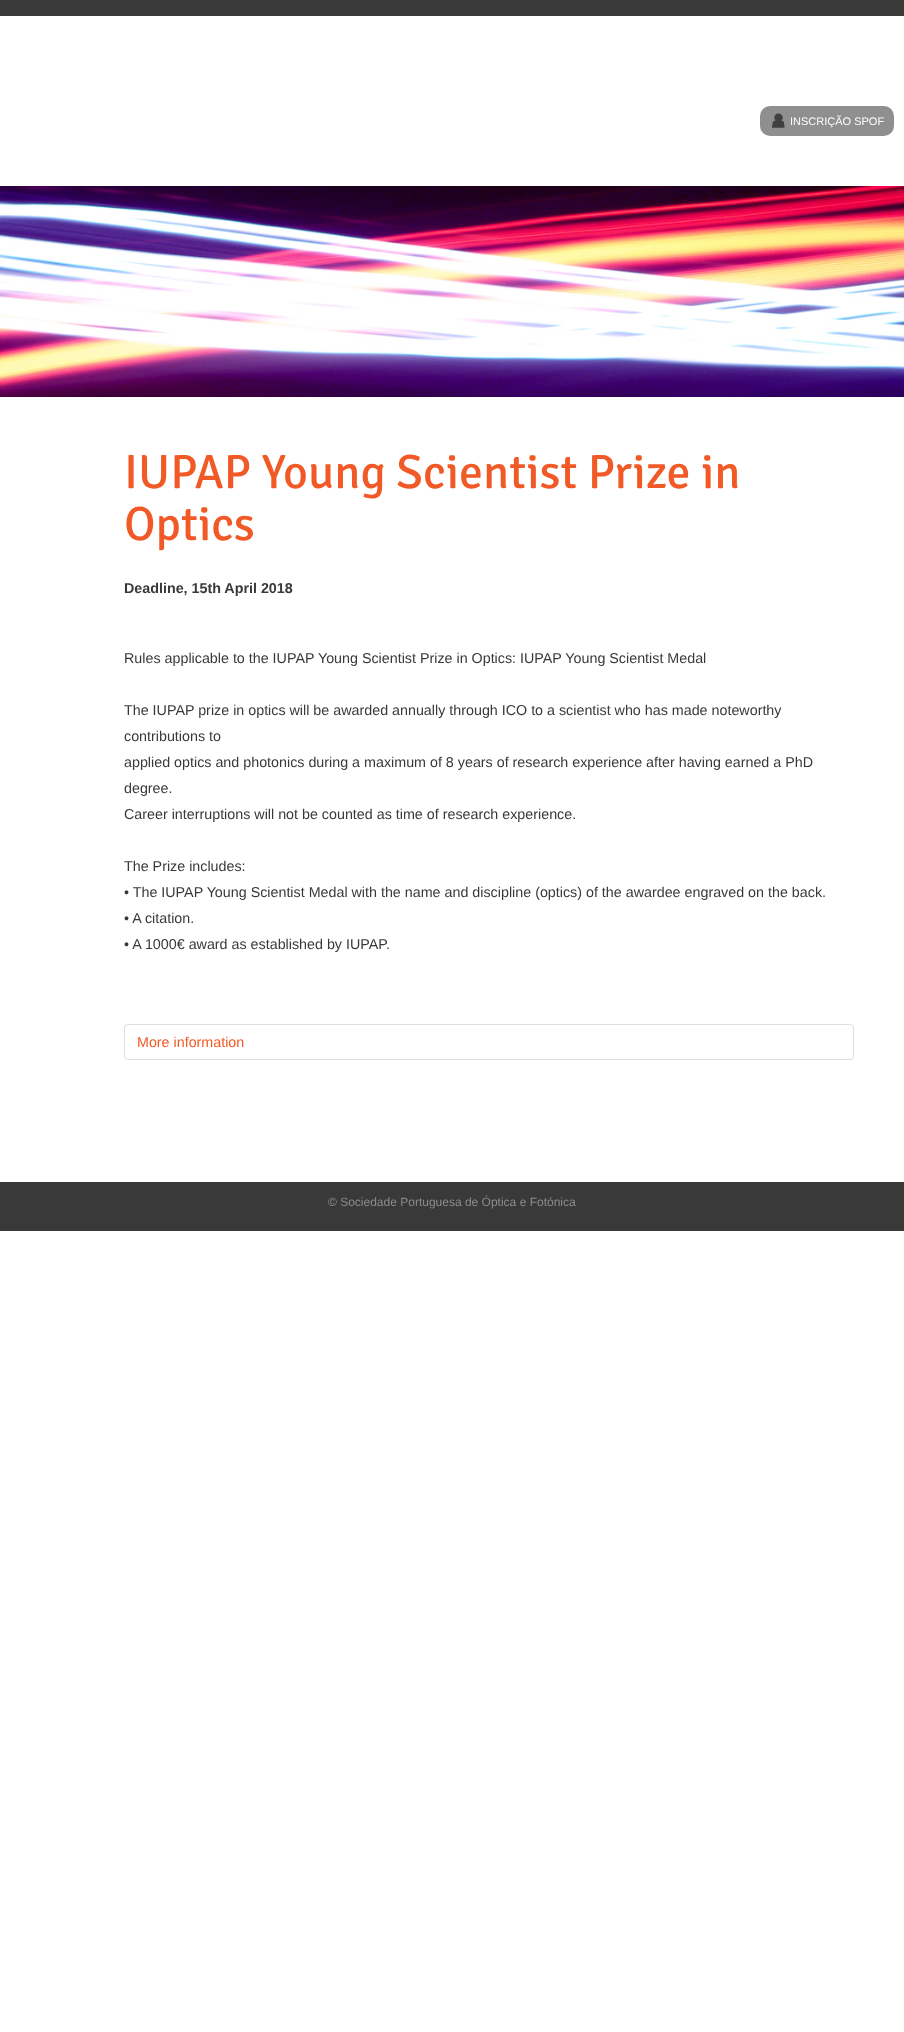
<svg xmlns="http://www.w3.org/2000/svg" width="904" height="2032">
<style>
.a{font:11px Liberation Sans;fill:#fff}
.b{font:48px Signika;fill:#f15a27}
.c{font:bold 14.3px Liberation Sans;fill:#393939}
.d{font:14.3px Liberation Sans;fill:#393939}
.e{font:14.3px Liberation Sans;fill:#f15a27}
.f{font:12px Liberation Sans;fill:#8c8c8c}
</style>
<rect width="100%" height="100%" fill="#fff"/>
<path fill="#393939" d="M0 0h904v16H0z"/>
<rect fill="#8f8f8f" x="760" y="106" width="134" height="30" rx="10"/>
<image href="1.png" x="772" y="113" width="13" height="15"/>
<image href="2.png" x="0" y="186" width="904" height="211"/>
<rect fill="none" stroke="#ddd" x="124.5" y="1024.5" width="729" height="35" rx="3.5"/>
<path fill="#393939" d="M0 1182h904v49H0z"/>
<text class="a" x="790" y="125">INSCRIÇÃO SPOF</text>
<text class="b" x="124" y="488">IUPAP Young Scientist Prize in</text>
<text class="b" x="124" y="540">Optics</text>
<text class="c" x="124" y="593">Deadline, 15th April 2018</text>
<text class="d" x="124" y="663">Rules applicable to the IUPAP Young Scientist Prize in Optics: IUPAP Young Scientist Medal</text>
<text class="d" x="124" y="715">The IUPAP prize in optics will be awarded annually through ICO to a scientist who has made noteworthy</text>
<text class="d" x="124" y="741">contributions to</text>
<text class="d" x="124" y="767">applied optics and photonics during a maximum of 8 years of research experience after having earned a PhD</text>
<text class="d" x="124" y="793">degree.</text>
<text class="d" x="124" y="819">Career interruptions will not be counted as time of research experience.</text>
<text class="d" x="124" y="871">The Prize includes:</text>
<text class="d" x="124" y="897">• The IUPAP Young Scientist Medal with the name and discipline (optics) of the awardee engraved on the back.</text>
<text class="d" x="124" y="923">• A citation.</text>
<text class="d" x="124" y="949">• A 1000€ award as established by IUPAP.</text>
<text class="e" x="137" y="1047">More information</text>
<text class="f" x="328" y="1206">© Sociedade Portuguesa de Óptica e Fotónica</text>
</svg>
